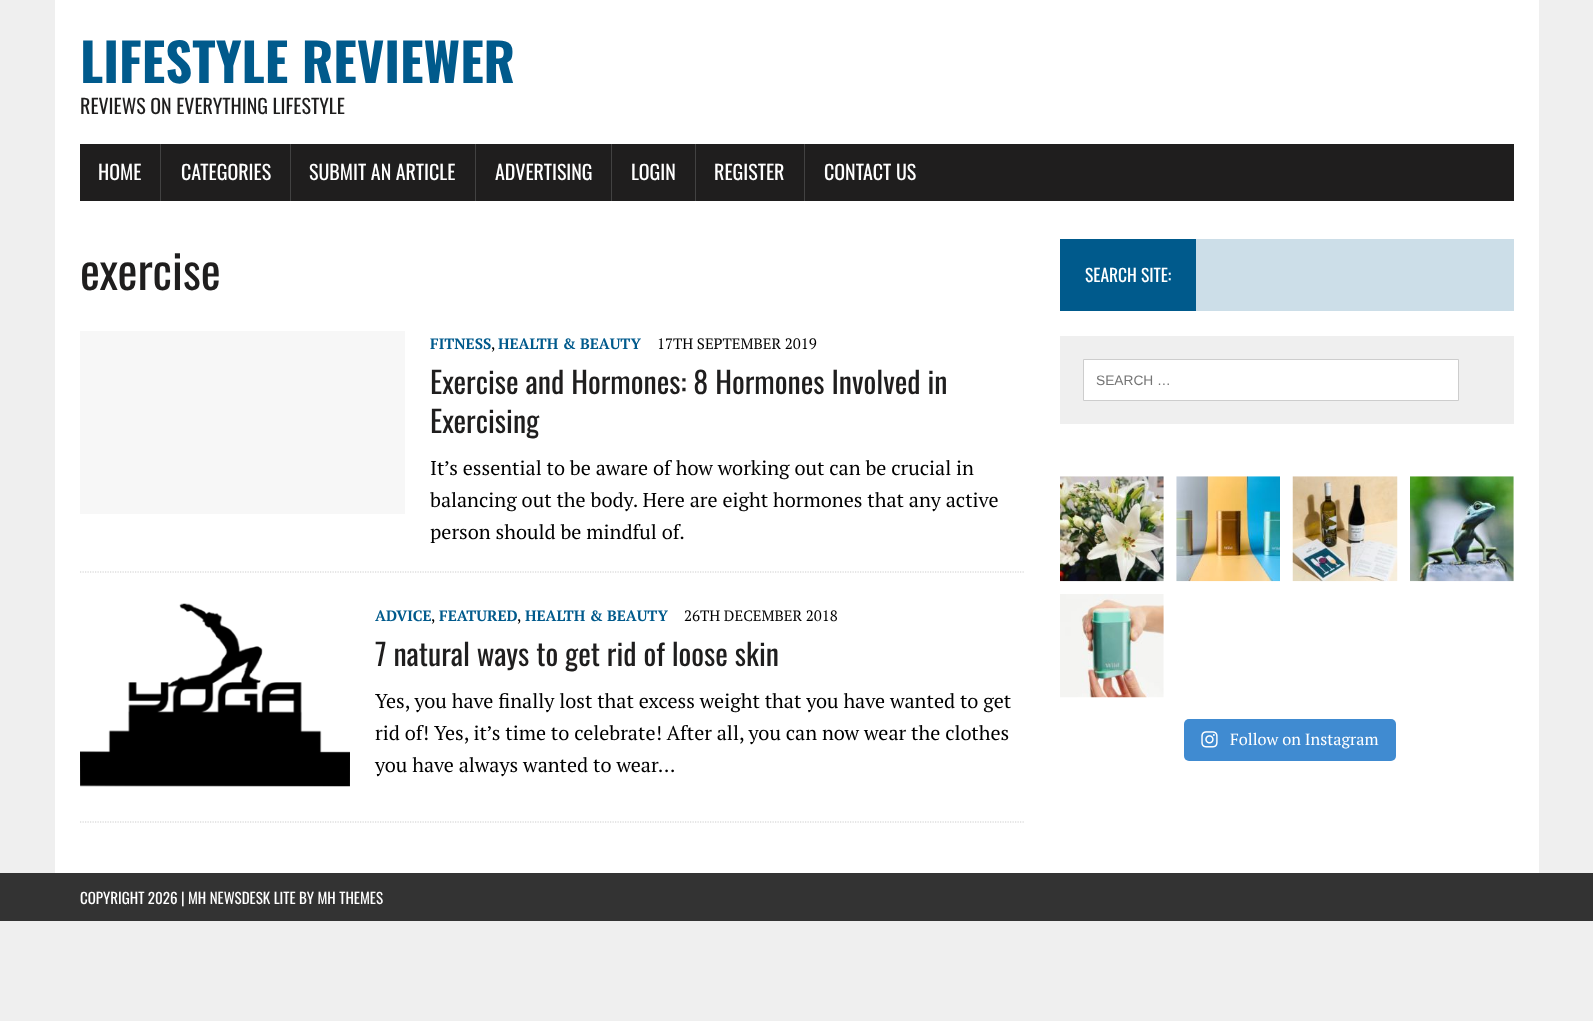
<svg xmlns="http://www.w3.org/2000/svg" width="1593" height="1021">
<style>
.a{font:bold 52.5px Oswald;fill:#005a8c}
.b{font:20px Oswald;fill:#1f1e1e}
.c{font:20px Oswald;fill:#fff}
.d{font:47.5px Oswald;fill:#1f1e1e}
.e{font:bold 15px PT Serif;fill:#005a8c}
.f{font:15px PT Serif;fill:#000}
.g{font:30px Oswald;fill:#1f1e1e}
.h{font:20px PT Serif;fill:#000}
.i{font:17.5px Oswald;fill:#fff}
.j{font:13.75px Liberation Sans;fill:#757575}
.k{font:16.25px PT Serif;fill:#fff}
.l{font:15px Oswald;fill:#fff}
</style>
<rect width="100%" height="100%" fill="#efefef"/>
<path fill="#fff" d="M55 0h1484v873H55z"/>
<path fill="#1f1e1e" d="M80 144h1434v57H80z"/>
<path fill="#424242" d="M160 144h1v57H160z"/>
<path fill="#424242" d="M290 144h1v57H290z"/>
<path fill="#424242" d="M475 144h1v57H475z"/>
<path fill="#424242" d="M611 144h1v57H611z"/>
<path fill="#424242" d="M695 144h1v57H695z"/>
<path fill="#424242" d="M804 144h1v57H804z"/>
<path fill="#f7f7f7" d="M80 331h325v183H80z"/>
<path fill="none" stroke="#cdcdcd" stroke-width="1.2" stroke-dasharray="1.25 1.25" d="M80 572h944"/>
<image href="1.png" x="80" y="603" width="270" height="184"/>
<path fill="none" stroke="#cdcdcd" stroke-width="1.2" stroke-dasharray="1.25 1.25" d="M80 822h944"/>
<path fill="#ccdee8" d="M1196 239h318v72H1196z"/>
<path fill="#005a8c" d="M1060 239h136v72H1060z"/>
<path fill="#efefef" d="M1060 336h454v88H1060z"/>
<path fill="#fff" stroke="#cdcdcd" d="M1083.5 359.5h375v41H1083.5z"/>
<image href="2.png" x="1060" y="476" width="104" height="106"/>
<image href="3.png" x="1176" y="476" width="104" height="106"/>
<image href="4.png" x="1292" y="476" width="106" height="106"/>
<image href="5.png" x="1410" y="476" width="104" height="106"/>
<image href="6.png" x="1060" y="594" width="104" height="104"/>
<rect fill="#408bd1" x="1184" y="719" width="212" height="42" rx="5"/>
<image href="7.png" x="1201" y="731" width="17" height="17"/>
<path fill="#333" d="M0 873h1593v48H0z"/>
<text class="a" x="80" y="83">LIFESTYLE REVIEWER</text>
<text class="b" x="80" y="114">REVIEWS ON EVERYTHING LIFESTYLE</text>
<text class="c" x="98" y="180">HOME</text>
<text class="c" x="181" y="180">CATEGORIES</text>
<text class="c" x="309" y="180">SUBMIT AN ARTICLE</text>
<text class="c" x="495" y="180">ADVERTISING</text>
<text class="c" x="631" y="180">LOGIN</text>
<text class="c" x="714" y="180">REGISTER</text>
<text class="c" x="824" y="180">CONTACT US</text>
<text class="d" x="80" y="290">exercise</text>
<text class="e" x="430" y="349">FITNESS</text>
<text class="f" x="491" y="349">,</text>
<text class="e" x="498" y="349">HEALTH &amp; BEAUTY</text>
<text class="f" x="657" y="349">17TH SEPTEMBER 2019</text>
<text class="g" x="430" y="394">Exercise and Hormones: 8 Hormones Involved in</text>
<text class="g" x="430" y="433">Exercising</text>
<text class="h" x="430" y="475">It’s essential to be aware of how working out can be crucial in</text>
<text class="h" x="430" y="507">balancing out the body. Here are eight hormones that any active</text>
<text class="h" x="430" y="539">person should be mindful of.</text>
<text class="e" x="375" y="621">ADVICE</text>
<text class="f" x="431" y="621">,</text>
<text class="e" x="439" y="621">FEATURED</text>
<text class="f" x="517" y="621">,</text>
<text class="e" x="525" y="621">HEALTH &amp; BEAUTY</text>
<text class="f" x="684" y="621">26TH DECEMBER 2018</text>
<text class="g" x="375" y="666">7 natural ways to get rid of loose skin</text>
<text class="h" x="375" y="708">Yes, you have finally lost that excess weight that you have wanted to get</text>
<text class="h" x="375" y="740">rid of! Yes, it’s time to celebrate! After all, you can now wear the clothes</text>
<text class="h" x="375" y="772">you have always wanted to wear…</text>
<text class="i" x="1085" y="282">SEARCH SITE:</text>
<text class="j" x="1096" y="385">SEARCH …</text>
<text class="k" x="1230" y="745">Follow on Instagram</text>
<text class="l" x="80" y="904">COPYRIGHT 2026 | MH NEWSDESK LITE BY MH THEMES</text>
</svg>
